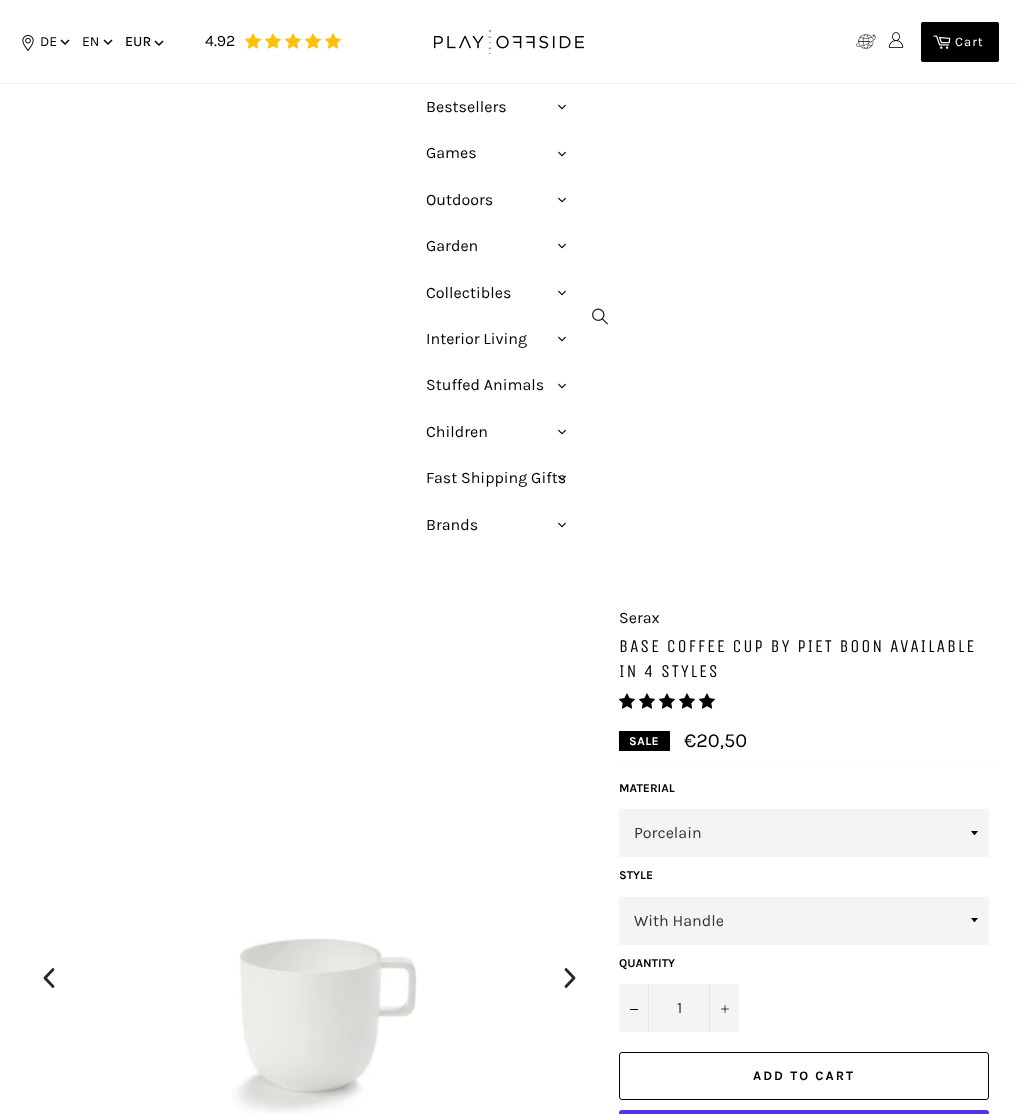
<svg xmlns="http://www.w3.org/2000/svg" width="1019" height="1114">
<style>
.a{font:14px Karla;fill:#000}
.b{font:500 14px Karla;fill:#000}
.c{font:16px Karla;fill:#000}
.d{font:13px Karla;letter-spacing:1px;fill:#fff}
.e{font:18px Unica One;letter-spacing:1.8px;fill:#000}
.f{font:bold 12px Karla;letter-spacing:0.5px;fill:#fff}
.g{font:20px Karla;fill:#000}
.h{font:bold 12px Karla;fill:#000}
.i{font:16px Karla;fill:#333}
.j{font:bold 13px Karla;letter-spacing:2px;fill:#000}
</style>
<rect width="100%" height="100%" fill="#fff"/>
<image href="1.png" x="22" y="35" width="12" height="16"/>
<path fill="none" stroke="#000" stroke-width="1.5" d="M61 40l4 4l4-4"/>
<path fill="none" stroke="#000" stroke-width="1.5" d="M104 40l4 4l4-4"/>
<path fill="none" stroke="#000" stroke-width="1.5" d="M155 41l4 4l4-4"/>
<image href="2.png" x="245" y="33" width="16" height="16"/>
<image href="2.png" x="265" y="33" width="16" height="16"/>
<image href="2.png" x="285" y="33" width="16" height="16"/>
<image href="2.png" x="305" y="33" width="16" height="16"/>
<image href="2.png" x="325" y="33" width="16" height="16"/>
<image href="3.png" x="434" y="30" width="150" height="24"/>
<image href="4.png" x="856" y="34" width="20" height="15"/>
<image href="5.png" x="888" y="32" width="16" height="16"/>
<rect fill="#000" x="921" y="22" width="78" height="40" rx="2"/>
<image href="6.png" x="933" y="35" width="18" height="14"/>
<path fill="#f2f2f2" d="M0 83h1019v1H0z"/>
<image href="7.png" x="558" y="104" width="8" height="6"/>
<image href="7.png" x="558" y="151" width="8" height="6"/>
<image href="7.png" x="558" y="197" width="8" height="6"/>
<image href="7.png" x="558" y="243" width="8" height="6"/>
<image href="7.png" x="558" y="290" width="8" height="6"/>
<image href="7.png" x="558" y="336" width="8" height="6"/>
<image href="7.png" x="558" y="383" width="8" height="6"/>
<image href="7.png" x="558" y="429" width="8" height="6"/>
<image href="7.png" x="558" y="522" width="8" height="6"/>
<image href="9.png" x="592" y="308" width="16" height="17"/>
<image href="10.png" x="232" y="937" width="185" height="177"/>
<image href="11.png" x="243" y="940" width="173" height="153"/>
<path fill="none" stroke="#262626" stroke-width="2.8" stroke-linecap="round" stroke-linejoin="round" d="M53 969.5l-8 8.5l8 8.5"/>
<path fill="none" stroke="#262626" stroke-width="2.8" stroke-linecap="round" stroke-linejoin="round" d="M566 969.5l8 8.5l-8 8.5"/>
<image href="12.png" x="619" y="693" width="16" height="16"/>
<image href="12.png" x="639" y="693" width="16" height="16"/>
<image href="12.png" x="659" y="693" width="16" height="16"/>
<image href="12.png" x="679" y="693" width="16" height="16"/>
<image href="12.png" x="699" y="693" width="16" height="16"/>
<path fill="#000" d="M619 731h51v20H619z"/>
<path fill="#fafafa" d="M619 765h380v1H619z"/>
<path fill="#f4f4f4" d="M619 809h370v48H619z"/>
<path fill="#000" d="M971 831c4.5 5.5 2.5 5.5 7 0z"/>
<path fill="#f4f4f4" d="M619 897h370v48H619z"/>
<path fill="#000" d="M971 918c4.5 5.5 2.5 5.5 7 0z"/>
<path fill="#f4f4f4" d="M619 984h120v48H619z"/>
<path fill="#e7e7e7" d="M648 984h1v48H648z"/>
<path fill="#000" d="M630 1009h8v1H630z"/>
<path fill="#e7e7e7" d="M709 984h1v48H709z"/>
<image href="13.png" x="721" y="1005" width="8" height="8"/>
<rect fill="none" stroke="#000" x="619.5" y="1052.5" width="369" height="47" rx="2.5"/>
<rect fill="#5433eb" x="619" y="1110" width="370" height="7" rx="3"/>
<text class="a" x="40" y="46">DE</text>
<text class="a" x="82" y="46">EN</text>
<text class="b" x="125" y="46">EUR</text>
<text class="c" x="205" y="46">4.92</text>
<text class="d" x="955" y="46">Cart</text>
<text class="c" x="426" y="112">Bestsellers</text>
<text class="c" x="426" y="158">Games</text>
<text class="c" x="426" y="205">Outdoors</text>
<text class="c" x="426" y="251">Garden</text>
<text class="c" x="426" y="298">Collectibles</text>
<text class="c" x="426" y="344">Interior Living</text>
<text class="c" x="426" y="390">Stuffed Animals</text>
<text class="c" x="426" y="437">Children</text>
<text class="c" x="426" y="483">Fast Shipping Gifts</text>
<image href="8.png" x="558" y="475" width="8" height="6"/>
<text class="c" x="426" y="530">Brands</text>
<text class="c" x="619" y="623">Serax</text>
<text class="e" x="619" y="652">BASE COFFEE CUP BY PIET BOON AVAILABLE</text>
<text class="e" x="619" y="677">IN 4 STYLES</text>
<text class="f" x="629" y="745">SALE</text>
<text class="g" x="684" y="747">€20,50</text>
<text class="h" x="619" y="792">MATERIAL</text>
<text class="i" x="634" y="838">Porcelain</text>
<text class="h" x="619" y="879">STYLE</text>
<text class="i" x="634" y="926">With Handle</text>
<text class="h" x="619" y="967">QUANTITY</text>
<text class="i" x="677" y="1013">1</text>
<text class="j" x="753" y="1080">ADD TO CART</text>
</svg>
